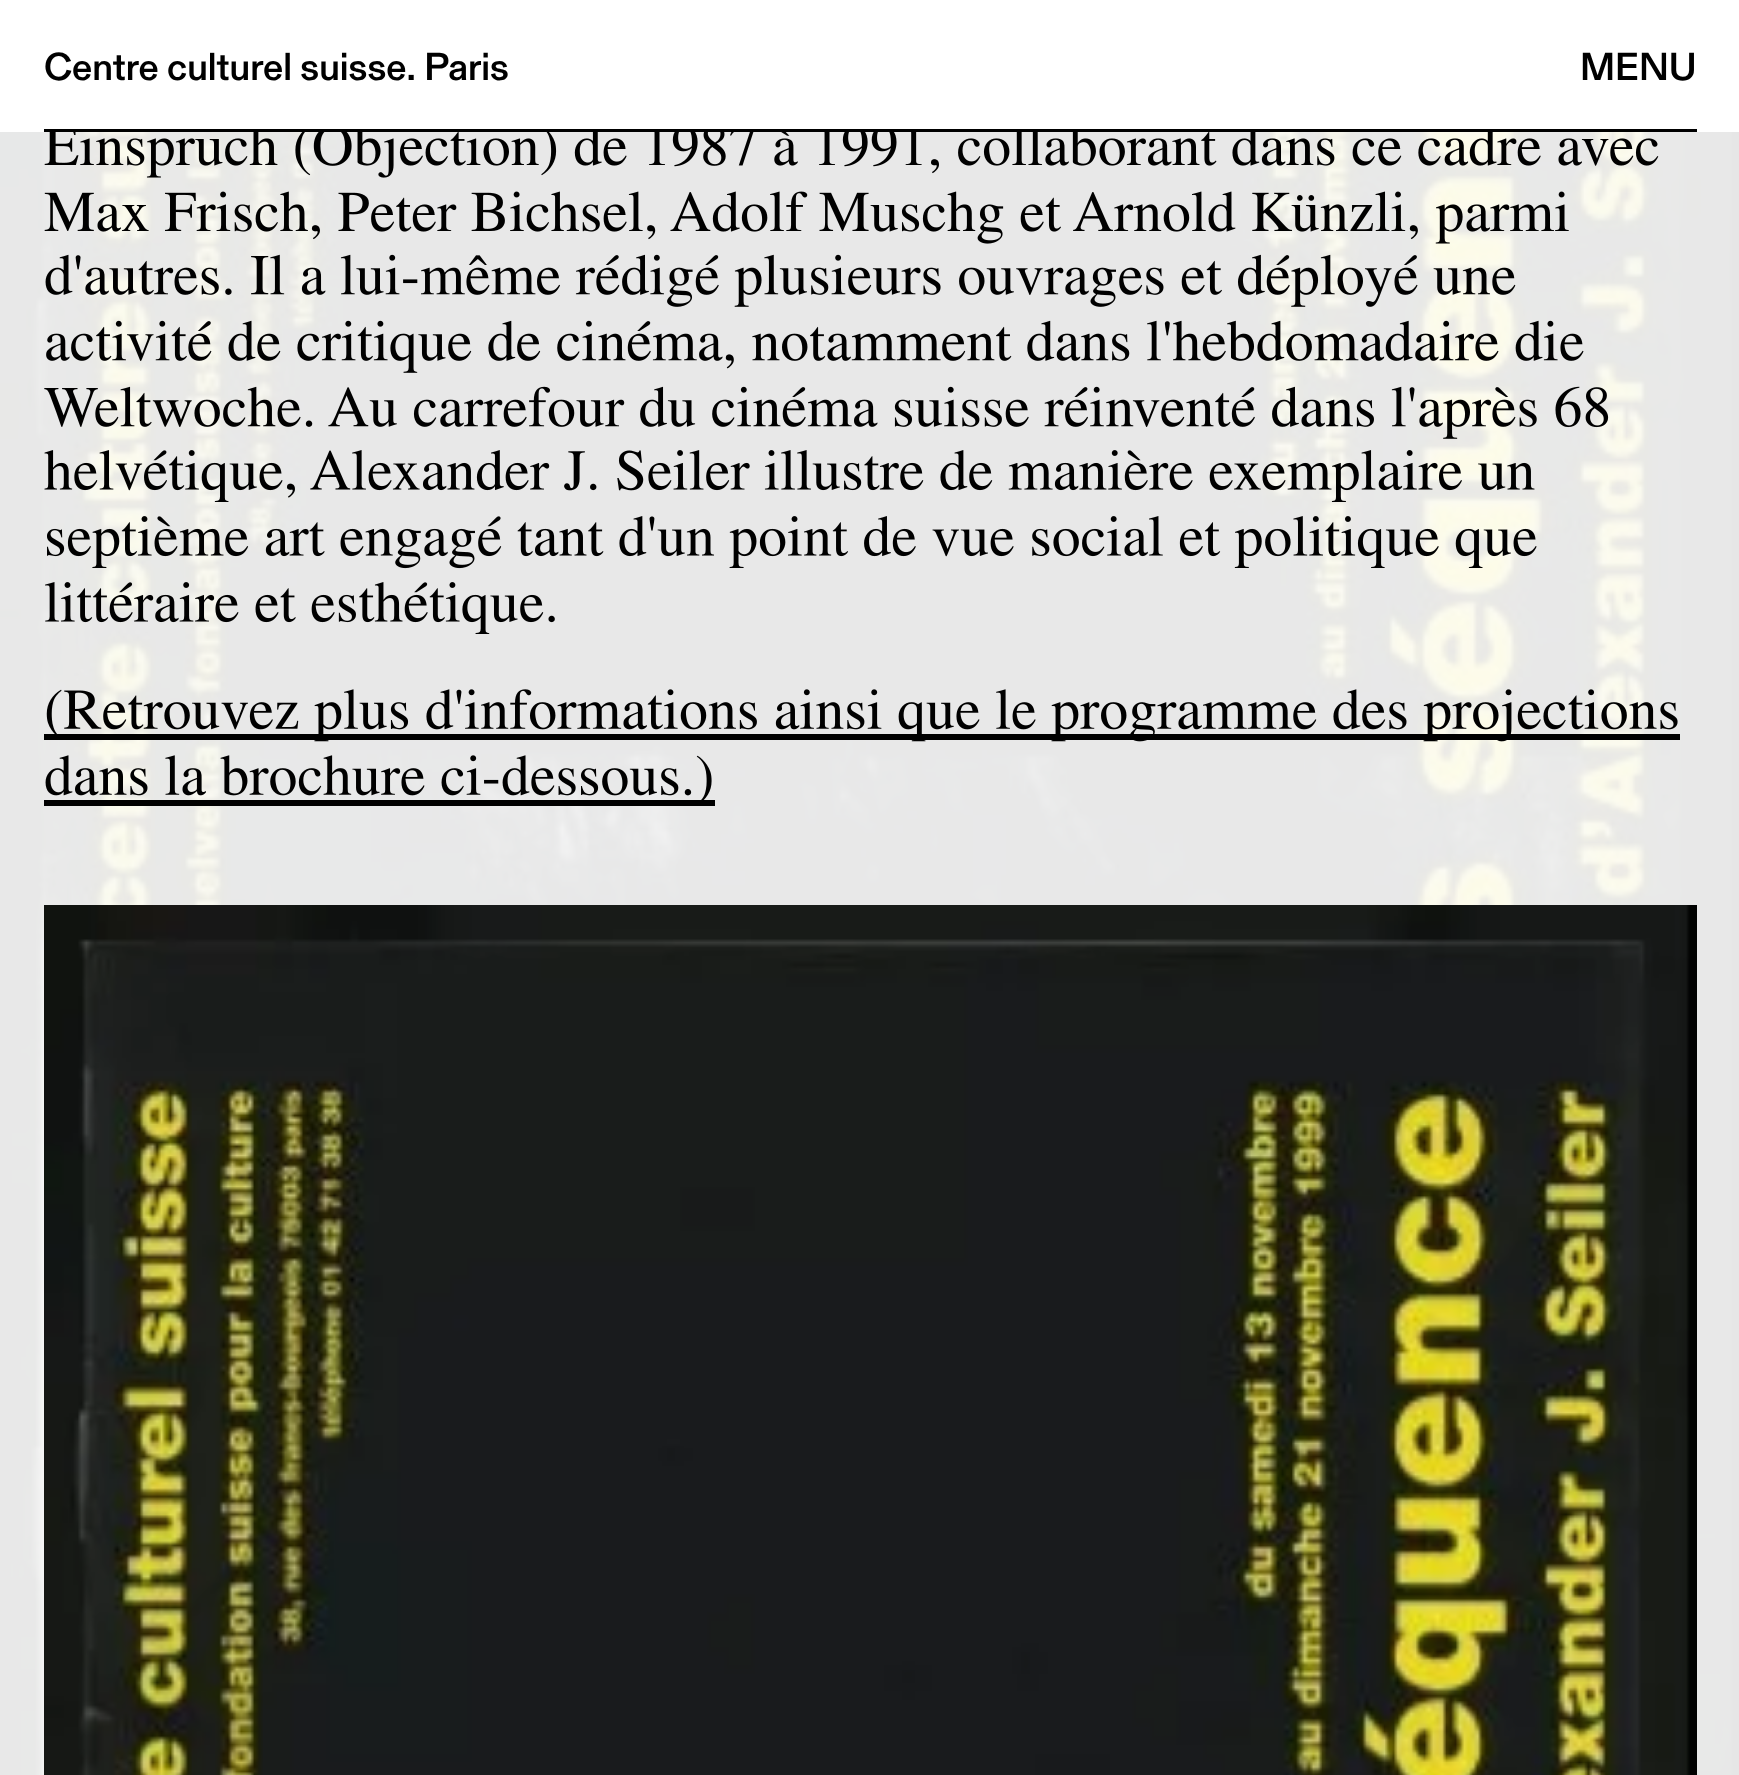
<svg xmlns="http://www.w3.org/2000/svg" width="1739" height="1775">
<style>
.a{font:500 38.5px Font;fill:#000}
</style>
<rect width="100%" height="100%" fill="#fff"/>
<path fill="#000" d="M44 129h1653v3H44z"/>
<image href="1.png" x="0" y="132" width="1739" height="1643"/>
<image href="2.png" x="44" y="132" width="1615" height="46"/>
<image href="3.png" x="44" y="191" width="1525" height="53"/>
<image href="4.png" x="45" y="254" width="1471" height="53"/>
<image href="5.png" x="46" y="320" width="1538" height="53"/>
<image href="6.png" x="44" y="386" width="1565" height="53"/>
<image href="7.png" x="44" y="450" width="1491" height="52"/>
<image href="8.png" x="47" y="516" width="1490" height="53"/>
<image href="9.png" x="45" y="582" width="510" height="52"/>
<path fill="#000" d="M44 734h1636v6H44z"/>
<image href="10.png" x="46" y="689" width="1632" height="53"/>
<image href="11.png" x="45" y="755" width="667" height="45"/>
<path fill="#000" d="M44 800h671v6H44z"/>
<image href="12.png" x="44" y="905" width="1653" height="870"/>
<text class="a" x="44" y="80">Centre culturel suisse. Paris</text>
<text class="a" x="1580" y="80">MENU</text>
</svg>
